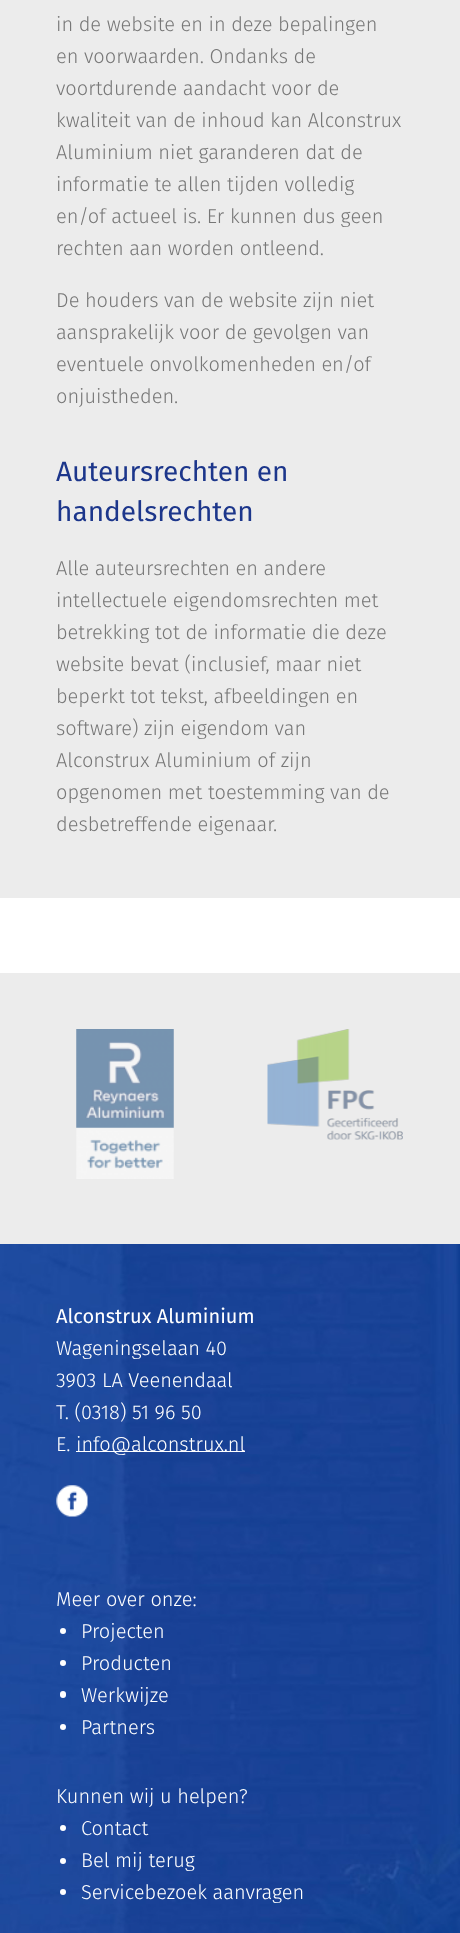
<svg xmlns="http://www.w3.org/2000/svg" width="460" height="1933">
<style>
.a{font:300 20px Fira Sans;fill:#777}
.b{font:28px Fira Sans;fill:#1c368b}
.c{font:20px Fira Sans;fill:#fff}
.d{font:300 20px Fira Sans;fill:#fff}
</style>
<rect width="100%" height="100%" fill="#fff"/>
<path fill="#ececec" d="M0 0h460v898H0z"/>
<path fill="#ececec" d="M0 973h460v271H0z"/>
<image href="1.png" x="76" y="1029" width="98" height="150"/>
<image href="2.png" x="267" y="1029" width="136" height="111"/>
<image href="3.png" x="0" y="1244" width="460" height="689"/>
<path fill="#fff" d="M76 1451h169v1H76z"/>
<image href="4.png" x="56" y="1485" width="32" height="32"/>
<circle fill="#fff" cx="63" cy="1631" r="3"/>
<circle fill="#fff" cx="63" cy="1663" r="3"/>
<rect fill="#fff" x="60" y="1691" width="6" height="7" rx="3"/>
<circle fill="#fff" cx="63" cy="1727" r="3"/>
<circle fill="#fff" cx="63" cy="1828" r="3"/>
<circle fill="#fff" cx="63" cy="1861" r="3"/>
<circle fill="#fff" cx="63" cy="1892" r="3"/>
<text class="a" x="56" y="31">in de website en in deze bepalingen</text>
<text class="a" x="56" y="63">en voorwaarden. Ondanks de</text>
<text class="a" x="56" y="95">voortdurende aandacht voor de</text>
<text class="a" x="56" y="127">kwaliteit van de inhoud kan Alconstrux</text>
<text class="a" x="56" y="159">Aluminium niet garanderen dat de</text>
<text class="a" x="56" y="191">informatie te allen tijden volledig</text>
<text class="a" x="56" y="223">en/of actueel is. Er kunnen dus geen</text>
<text class="a" x="56" y="255">rechten aan worden ontleend.</text>
<text class="a" x="56" y="307">De houders van de website zijn niet</text>
<text class="a" x="56" y="339">aansprakelijk voor de gevolgen van</text>
<text class="a" x="56" y="371">eventuele onvolkomenheden en/of</text>
<text class="a" x="56" y="403">onjuistheden.</text>
<text class="b" x="56" y="481">Auteursrechten en</text>
<text class="b" x="56" y="521">handelsrechten</text>
<text class="a" x="56" y="575">Alle auteursrechten en andere</text>
<text class="a" x="56" y="607">intellectuele eigendomsrechten met</text>
<text class="a" x="56" y="639">betrekking tot de informatie die deze</text>
<text class="a" x="56" y="671">website bevat (inclusief, maar niet</text>
<text class="a" x="56" y="703">beperkt tot tekst, afbeeldingen en</text>
<text class="a" x="56" y="735">software) zijn eigendom van</text>
<text class="a" x="56" y="767">Alconstrux Aluminium of zijn</text>
<text class="a" x="56" y="799">opgenomen met toestemming van de</text>
<text class="a" x="56" y="831">desbetreffende eigenaar.</text>
<text class="c" x="56" y="1323">Alconstrux Aluminium</text>
<text class="d" x="56" y="1355">Wageningselaan 40</text>
<text class="d" x="56" y="1387">3903 LA Veenendaal</text>
<text class="d" x="56" y="1419">T. (0318) 51 96 50</text>
<text class="d" x="56" y="1451">E.</text>
<text class="d" x="76" y="1451">info@alconstrux.nl</text>
<text class="d" x="56" y="1606">Meer over onze:</text>
<text class="d" x="81" y="1638">Projecten</text>
<text class="d" x="81" y="1670">Producten</text>
<text class="d" x="81" y="1702">Werkwijze</text>
<text class="d" x="81" y="1734">Partners</text>
<text class="d" x="56" y="1803">Kunnen wij u helpen?</text>
<text class="d" x="81" y="1835">Contact</text>
<text class="d" x="81" y="1867">Bel mij terug</text>
<text class="d" x="81" y="1899">Servicebezoek aanvragen</text>
</svg>
